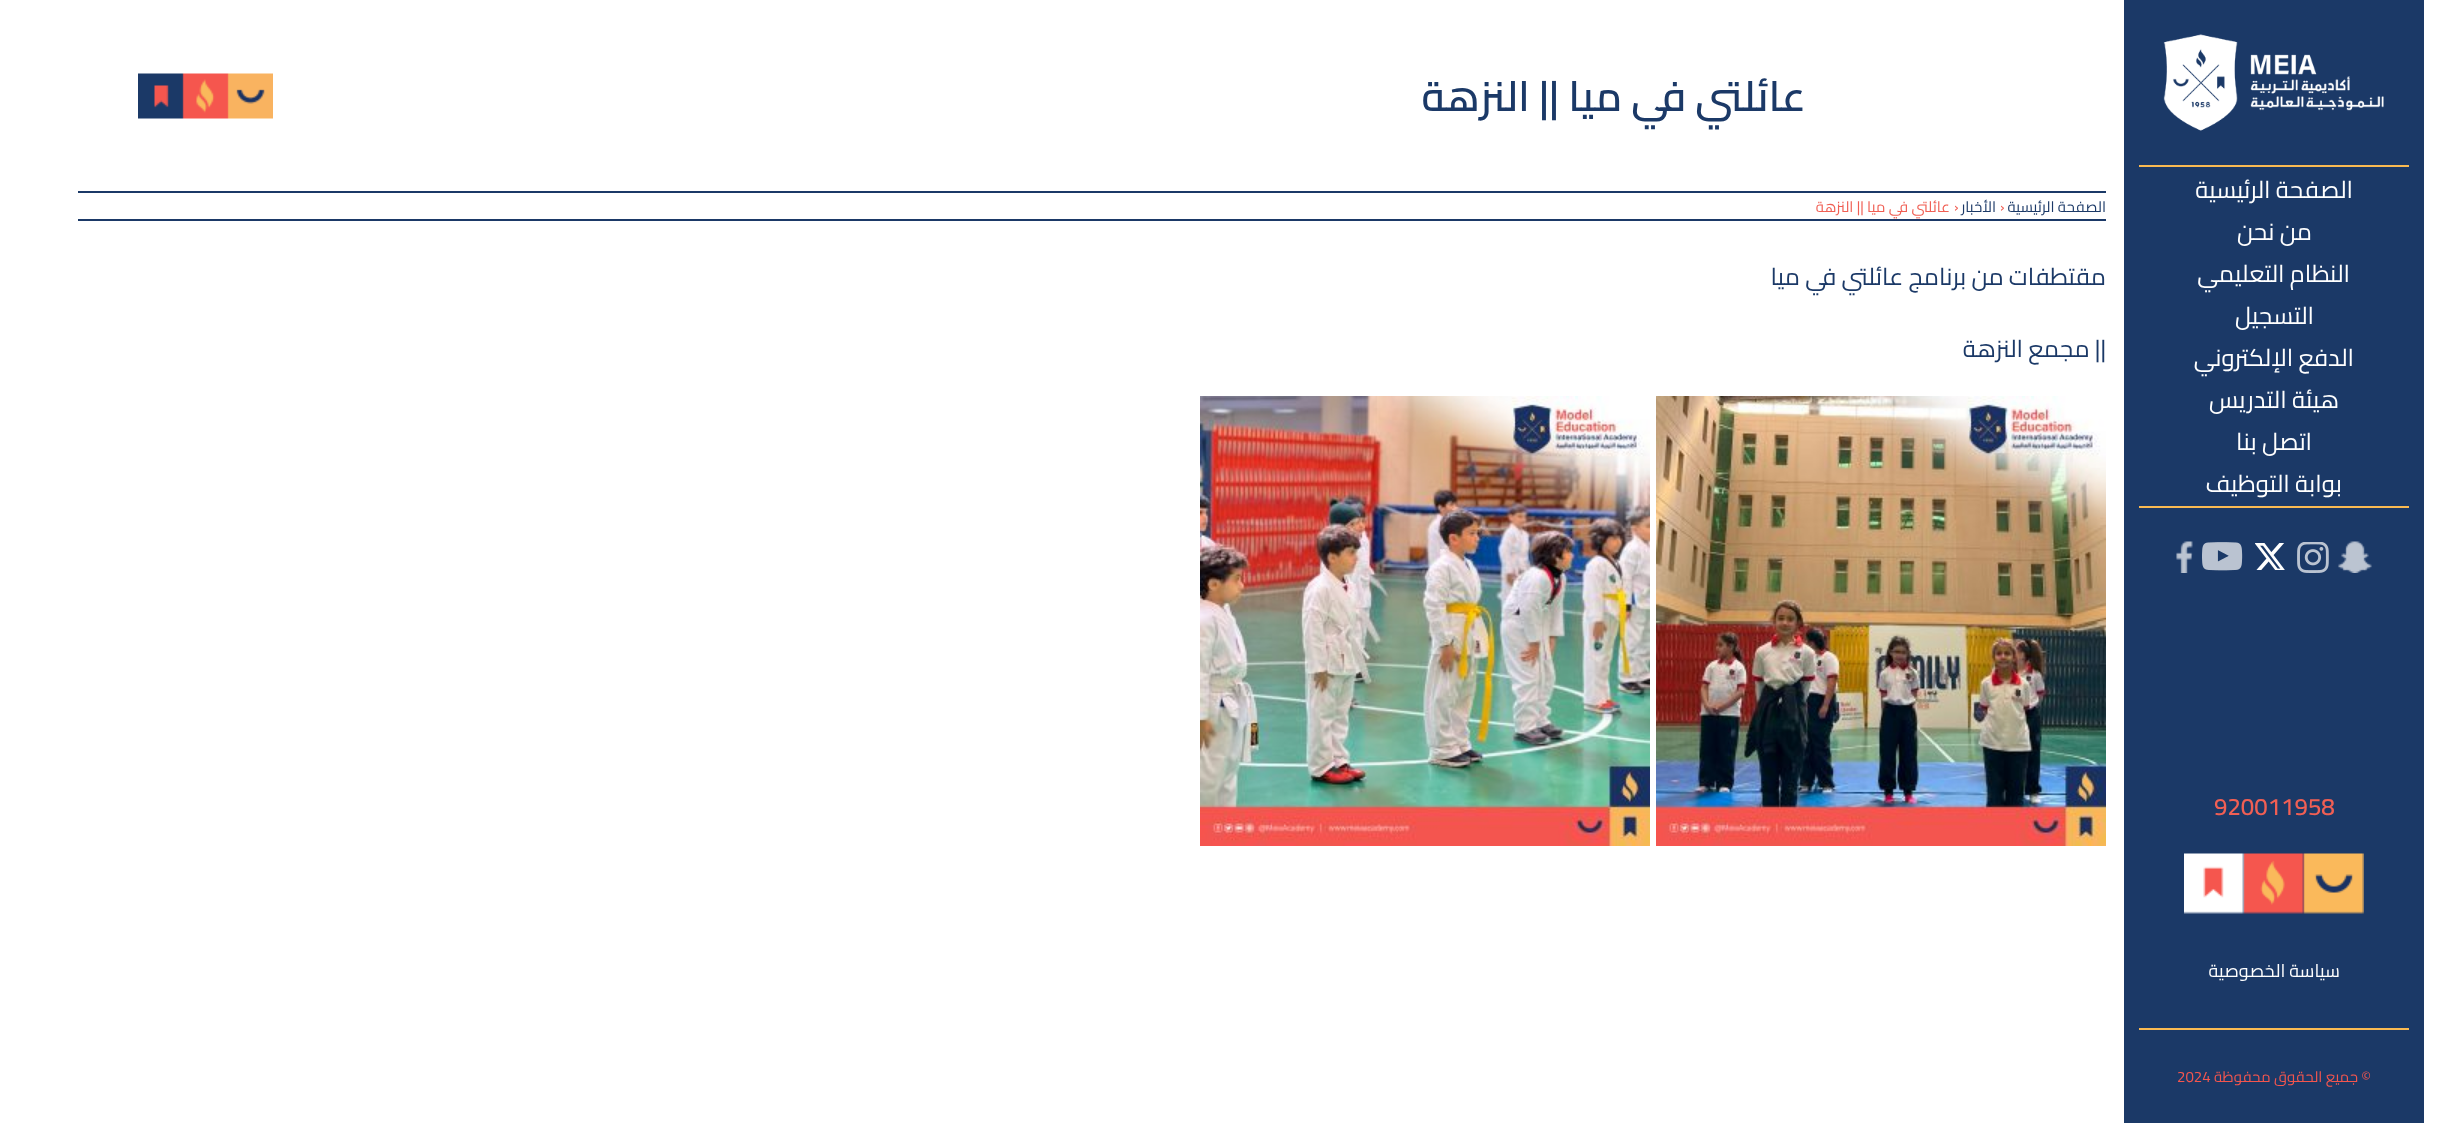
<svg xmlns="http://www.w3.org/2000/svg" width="2448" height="1123">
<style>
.a{font:24px Cairo;direction:rtl;fill:#fff}
.b{font:600 24px Cairo;fill:#f05f54}
.c{font:18px Cairo;direction:rtl;fill:#fff}
.d{font:15px Cairo;direction:rtl;fill:#f5564e}
.e{font:15px Cairo;fill:#f5564e}
.f{font:600 42px Cairo;direction:rtl;fill:#1b3967}
.g{font:15px Cairo;direction:rtl;fill:#1b3967}
.h{font:15px Cairo;fill:#f05f54}
.i{font:15px Cairo;direction:rtl;fill:#f05f54}
.j{font:24px Cairo;direction:rtl;fill:#1b3967}
</style>
<rect width="100%" height="100%" fill="#fff"/>
<path fill="#1b3967" d="M2124 0h300v1123H2124z"/>
<image href="1.png" x="2163" y="34" width="221" height="97"/>
<path fill="#faba52" d="M2139 165h270v2H2139z"/>
<path fill="#faba52" d="M2139 506h270v2H2139z"/>
<image href="2.png" x="2338" y="541" width="34" height="32"/>
<image href="3.png" x="2297" y="542" width="32" height="31"/>
<image href="4.png" x="2255" y="543" width="30" height="27"/>
<image href="5.png" x="2202" y="542" width="41" height="29"/>
<image href="6.png" x="2176" y="541" width="17" height="32"/>
<image href="7.png" x="2184" y="853" width="180" height="61"/>
<path fill="#faba52" d="M2139 1028h270v2H2139z"/>
<image href="8.png" x="138" y="73" width="135" height="46"/>
<path fill="#1b3967" d="M78 191h2028v2H78z"/>
<path fill="#1b3967" d="M78 219h2028v2H78z"/>
<image href="9.png" x="1656" y="396" width="450" height="450"/>
<image href="10.png" x="1200" y="396" width="450" height="450"/>
<text class="a" x="2353" y="198">الصفحة الرئيسية</text>
<text class="a" x="2312" y="240">من نحن</text>
<text class="a" x="2350" y="282">النظام التعليمي</text>
<text class="a" x="2314" y="324">التسجيل</text>
<text class="a" x="2354" y="366">الدفع الإلكتروني</text>
<text class="a" x="2339" y="408">هيئة التدريس</text>
<text class="a" x="2312" y="450">اتصل بنا</text>
<text class="a" x="2342" y="492">بوابة التوظيف</text>
<text class="b" x="2214" y="815">920011958</text>
<text class="c" x="2340" y="977">سياسة الخصوصية</text>
<text class="d" x="2371" y="1082">© جميع الحقوق محفوظة</text>
<text class="e" x="2177" y="1082">2024</text>
<text class="f" x="1806" y="111">عائلتي في ميا || النزهة</text>
<text class="g" x="2106" y="212">الصفحة الرئيسية</text>
<text class="h" x="2000" y="212">›</text>
<text class="g" x="1996" y="212">الأخبار</text>
<text class="h" x="1954" y="212">›</text>
<text class="i" x="1950" y="212">عائلتي في ميا || النزهة</text>
<text class="j" x="2106" y="285">مقتطفات من برنامج عائلتي في ميا</text>
<text class="j" x="2106" y="357">|| مجمع النزهة</text>
</svg>
